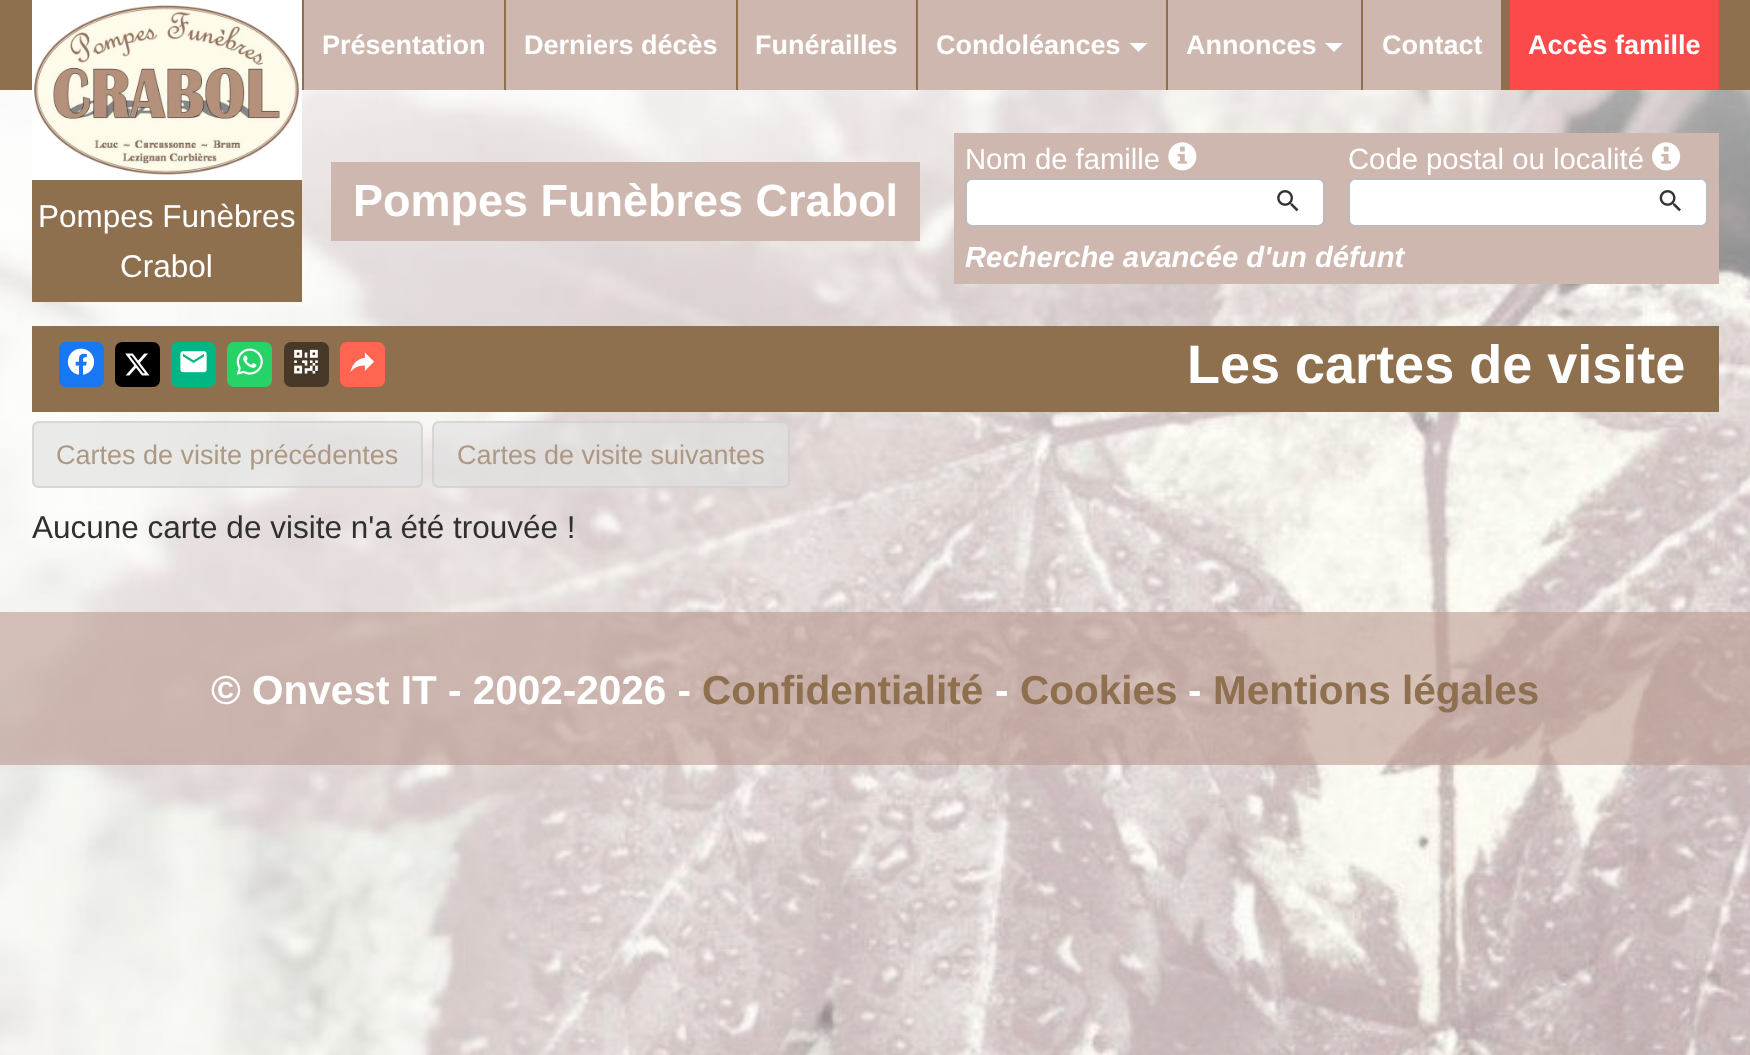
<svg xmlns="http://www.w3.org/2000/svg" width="1750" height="1055">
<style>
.a{font:bold 27px Liberation Sans;fill:#fff}
.b{font:31.5px Liberation Sans;fill:#fff}
.c{font:29.25px Liberation Sans;fill:#fff}
.d{font:italic bold 29.25px Liberation Sans;fill:#fff}
.e{font:bold 54px Liberation Sans;fill:#fff}
.f{font:bold 45px Liberation Sans;fill:#fff}
.g{font:27px Liberation Sans;fill:#ad9983}
.h{font:31.5px Liberation Sans;fill:#303030}
.i{font:bold 40.5px Liberation Sans;fill:#fff}
.j{font:bold 40.5px Liberation Sans;fill:#8e704f}
</style>
<rect width="100%" height="100%" fill="#fff"/>
<image href="1.png" x="0" y="90" width="1750" height="965"/>
<path fill="#8e704f" d="M0 0h1750v90H0z"/>
<path fill="#fff" d="M32 0h270v180H32z"/>
<image href="2.png" x="34" y="5" width="265" height="170"/>
<path fill="#ceb7af" d="M304 0h200v90H304z"/>
<path fill="#ceb7af" d="M506 0h230v90H506z"/>
<path fill="#ceb7af" d="M738 0h178v90H738z"/>
<path fill="#ceb7af" d="M918 0h248v90H918z"/>
<path fill="#fff" d="M1129.5 43h18l-9 9z"/>
<path fill="#ceb7af" d="M1168 0h333v90H1168z"/>
<path fill="#8e704f" d="M1361 0h2v90H1361z"/>
<path fill="#fff" d="M1325 43h18l-9 9z"/>
<path fill="#fc4a4a" d="M1510 0h209v90H1510z"/>
<path fill="#8e704f" d="M32 180h270v122H32z"/>
<path fill="#ceb7af" d="M954 133h765v151H954z"/>
<image href="3.png" x="1168" y="142" width="29" height="29"/>
<rect fill="#fff" stroke="#bbb" stroke-width="2" x="966" y="179" width="358" height="47" rx="6"/>
<image href="4.png" x="1277" y="190" width="22" height="22"/>
<image href="5.png" x="1652" y="142" width="29" height="29"/>
<rect fill="#fff" stroke="#bbb" stroke-width="2" x="1349" y="179" width="358" height="47" rx="6"/>
<image href="6.png" x="1659" y="190" width="22" height="22"/>
<path fill="#8e704f" d="M32 326h1687v86H32z"/>
<rect fill="#1877f2" x="59" y="342" width="45" height="45" rx="7"/>
<image href="7.png" x="67" y="348" width="28" height="27"/>
<rect fill="#000" x="115" y="342" width="45" height="45" rx="7"/>
<image href="8.png" x="125" y="353" width="25" height="23"/>
<rect fill="#00b685" x="171" y="342" width="45" height="45" rx="7"/>
<image href="9.png" x="180" y="351" width="27" height="22"/>
<rect fill="#25d366" x="227" y="342" width="45" height="45" rx="7"/>
<image href="10.png" x="236" y="348" width="27" height="27"/>
<rect fill="#473828" x="284" y="342" width="45" height="45" rx="7"/>
<image href="11.png" x="294" y="349" width="24" height="25"/>
<rect fill="#ff6550" x="340" y="342" width="45" height="45" rx="7"/>
<image href="12.png" x="350" y="352" width="24" height="20"/>
<path fill="#ceb7af" d="M331 162h589v79H331z"/>
<rect fill="#e0e0e0a6" x="32" y="421" width="391" height="67" rx="7"/>
<rect fill="none" stroke="#cccccca6" stroke-width="2" x="33" y="422" width="389" height="65" rx="6"/>
<rect fill="#e0e0e0a6" x="432" y="421" width="358" height="67" rx="7"/>
<rect fill="none" stroke="#cccccca6" stroke-width="2" x="433" y="422" width="356" height="65" rx="6"/>
<path fill="#bb9a8f99" d="M0 612h1750v153H0z"/>
<text class="a" x="322" y="54">Présentation</text>
<text class="a" x="524" y="54">Derniers décès</text>
<text class="a" x="755" y="54">Funérailles</text>
<text class="a" x="936" y="54">Condoléances</text>
<text class="a" x="1186" y="54">Annonces</text>
<text class="a" x="1382" y="54">Contact</text>
<text class="a" x="1528" y="54">Accès famille</text>
<text class="b" x="38" y="227">Pompes Funèbres</text>
<text class="b" x="120" y="277">Crabol</text>
<text class="c" x="965" y="169">Nom de famille</text>
<text class="c" x="1348" y="169">Code postal ou localité</text>
<text class="d" x="965" y="267">Recherche avancée d'un défunt</text>
<text class="e" x="1187" y="383">Les cartes de visite</text>
<text class="f" x="353" y="216">Pompes Funèbres Crabol</text>
<text class="g" x="56" y="464">Cartes de visite précédentes</text>
<text class="g" x="457" y="464">Cartes de visite suivantes</text>
<text class="h" x="32" y="538">Aucune carte de visite n'a été trouvée !</text>
<text class="i" x="211" y="704">© Onvest IT - 2002-2026 -</text>
<text class="j" x="702" y="704">Confidentialité</text>
<text class="i" x="995" y="704">-</text>
<text class="j" x="1020" y="704">Cookies</text>
<text class="i" x="1188" y="704">-</text>
<text class="j" x="1213" y="704">Mentions légales</text>
</svg>
